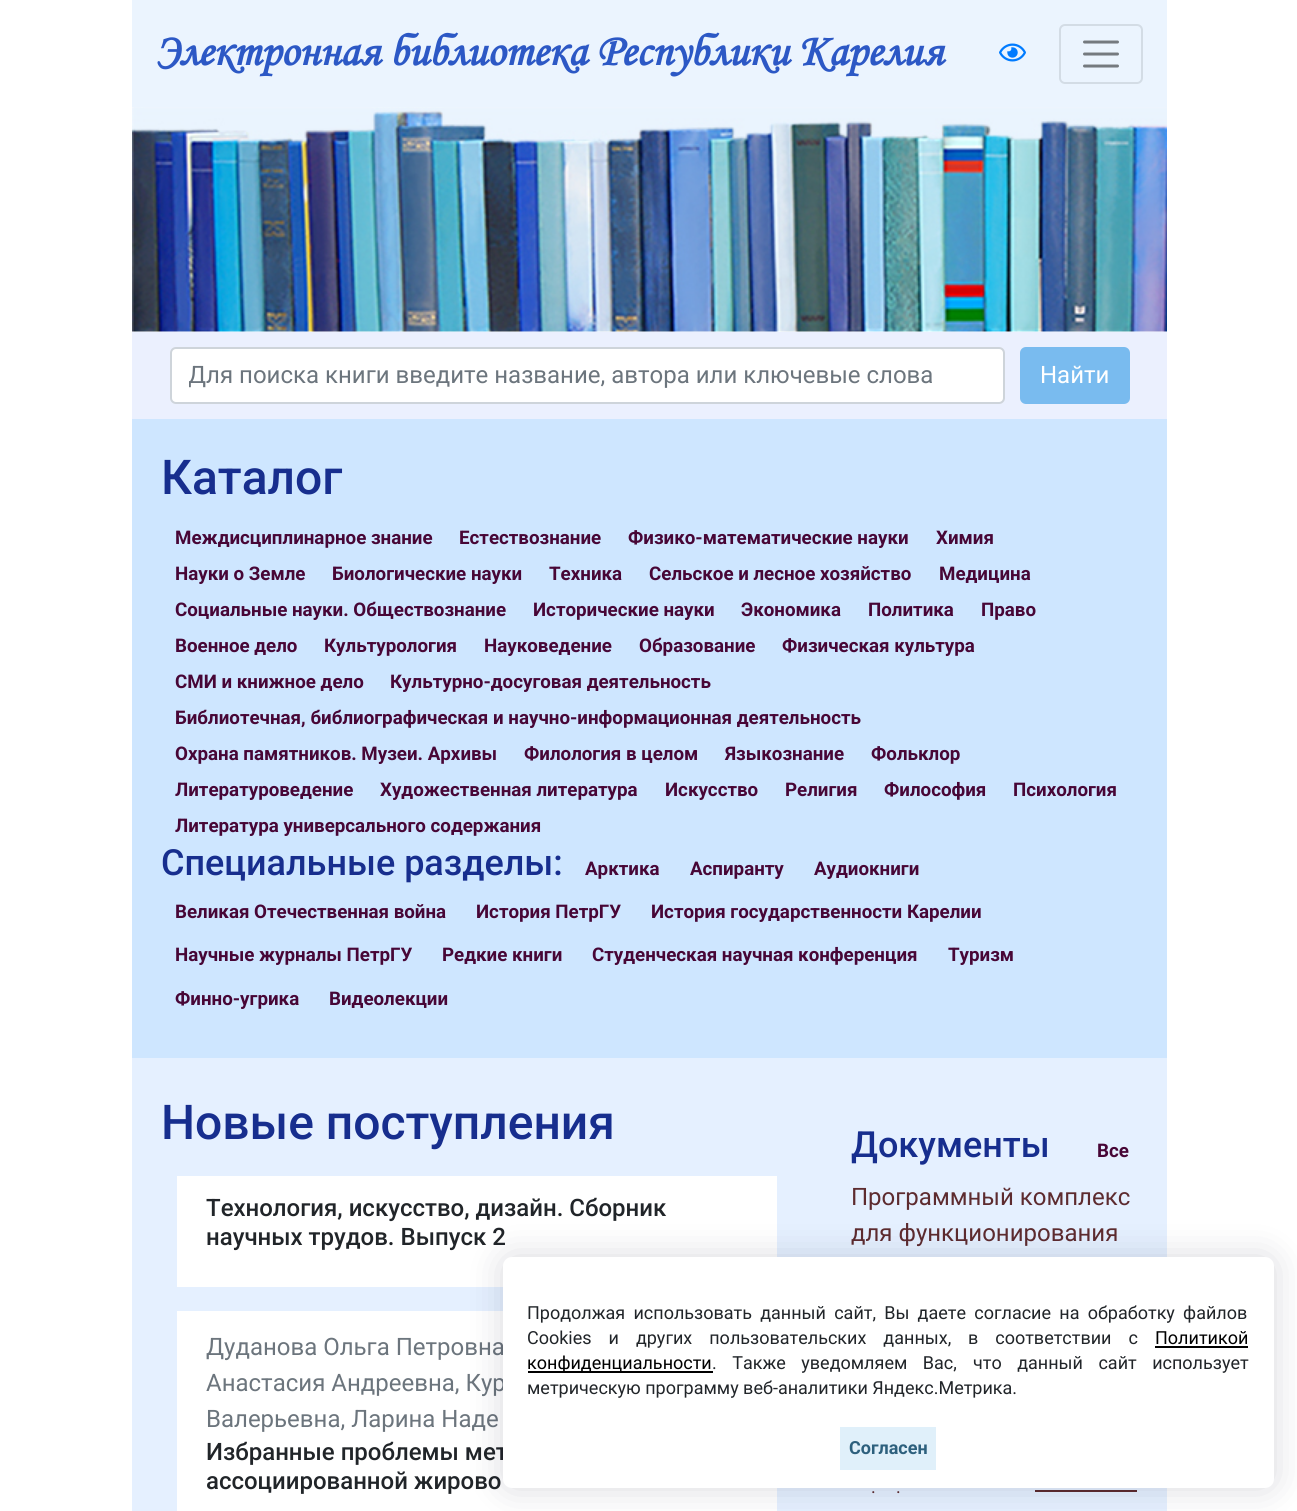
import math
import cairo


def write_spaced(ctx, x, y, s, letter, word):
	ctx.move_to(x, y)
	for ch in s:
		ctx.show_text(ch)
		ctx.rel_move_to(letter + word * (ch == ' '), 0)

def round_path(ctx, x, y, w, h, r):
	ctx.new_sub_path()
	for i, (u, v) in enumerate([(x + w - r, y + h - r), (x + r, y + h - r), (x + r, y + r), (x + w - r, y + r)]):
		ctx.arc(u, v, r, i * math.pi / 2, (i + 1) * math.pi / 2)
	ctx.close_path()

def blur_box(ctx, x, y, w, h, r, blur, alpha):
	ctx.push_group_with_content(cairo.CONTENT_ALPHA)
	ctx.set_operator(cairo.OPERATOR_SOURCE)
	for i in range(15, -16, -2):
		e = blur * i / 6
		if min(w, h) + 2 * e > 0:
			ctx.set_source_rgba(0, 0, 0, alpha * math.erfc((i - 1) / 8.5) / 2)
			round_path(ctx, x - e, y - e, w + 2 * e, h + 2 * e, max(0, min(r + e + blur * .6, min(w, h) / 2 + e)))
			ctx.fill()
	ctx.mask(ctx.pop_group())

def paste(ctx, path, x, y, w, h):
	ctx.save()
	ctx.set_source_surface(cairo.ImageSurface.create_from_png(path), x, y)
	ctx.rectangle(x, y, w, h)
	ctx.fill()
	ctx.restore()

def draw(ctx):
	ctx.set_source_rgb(1, 1, 1)
	ctx.paint()
	ctx.set_source_rgb(0.918, 0.957, 0.996)
	ctx.rectangle(132, 0, 1035, 107)
	ctx.fill()
	ctx.select_font_face('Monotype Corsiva', cairo.FONT_SLANT_ITALIC, cairo.FONT_WEIGHT_BOLD)
	ctx.set_font_size(45)
	ctx.set_source_rgb(0.173, 0.345, 0.773)
	ctx.move_to(155, 65)
	ctx.show_text('Электронная библиотека Республики Карелия')
	paste(ctx, 'media/1.png', 999, 43, 27, 19)
	round_path(ctx, 1060, 25, 82, 58, 5)
	ctx.set_source_rgb(0.827, 0.863, 0.898)
	ctx.stroke()
	ctx.new_path()
	ctx.move_to(1084.5, 42)
	ctx.line_to(1117.5, 42)
	ctx.move_to(1084.5, 54)
	ctx.line_to(1117.5, 54)
	ctx.move_to(1084.5, 66)
	ctx.line_to(1117.5, 66)
	ctx.set_source_rgb(0.459, 0.478, 0.498)
	ctx.set_line_width(3)
	ctx.set_line_cap(cairo.LINE_CAP_ROUND)
	ctx.stroke()
	paste(ctx, 'media/2.png', 132, 107, 1035, 225)
	ctx.set_source_rgb(0.918, 0.941, 0.996)
	ctx.rectangle(132, 332, 1035, 87)
	ctx.fill()
	ctx.set_source_rgb(1, 1, 1)
	round_path(ctx, 171, 348, 833, 55, 5)
	ctx.fill_preserve()
	ctx.set_source_rgb(0.808, 0.831, 0.855)
	ctx.set_line_width(2)
	ctx.set_line_cap(cairo.LINE_CAP_BUTT)
	ctx.stroke()
	ctx.save()
	ctx.rectangle(189, 362, 797, 28)
	ctx.clip()
	ctx.select_font_face('Roboto')
	ctx.set_font_size(24)
	ctx.set_source_rgb(0.424, 0.459, 0.49)
	ctx.move_to(188, 383)
	ctx.show_text('Для поиска книги введите название, автора или ключевые слова')
	ctx.restore()
	ctx.set_source_rgb(0.475, 0.733, 0.937)
	round_path(ctx, 1021, 348, 108, 55, 5)
	ctx.fill_preserve()
	ctx.stroke()
	ctx.select_font_face('Roboto')
	ctx.set_font_size(24)
	ctx.set_source_rgb(1, 1, 1)
	ctx.move_to(1040, 383)
	ctx.show_text('Найти')
	ctx.set_source_rgb(0.808, 0.902, 1)
	ctx.rectangle(132, 419, 1035, 639)
	ctx.fill()
	ctx.select_font_face('Roboto Medium')
	ctx.set_font_size(48)
	ctx.set_source_rgb(0.09, 0.18, 0.557)
	ctx.move_to(161, 494)
	ctx.show_text('Каталог')
	ctx.select_font_face('Roboto', cairo.FONT_SLANT_NORMAL, cairo.FONT_WEIGHT_BOLD)
	ctx.set_font_size(18.75)
	ctx.set_source_rgb(0.278, 0.027, 0.212)
	for x, y, s in [
		(175, 544, 'Междисциплинарное знание'),
		(459, 544, 'Естествознание'),
		(628, 544, 'Физико-математические науки'),
		(936, 544, 'Химия'),
		(175, 580, 'Науки о Земле'),
		(332, 580, 'Биологические науки'),
		(549, 580, 'Техника'),
		(649, 580, 'Сельское и лесное хозяйство'),
		(939, 580, 'Медицина'),
		(175, 616, 'Социальные науки. Обществознание'),
		(533, 616, 'Исторические науки'),
		(741, 616, 'Экономика'),
		(868, 616, 'Политика'),
		(981, 616, 'Право'),
		(175, 652, 'Военное дело'),
		(324, 652, 'Культурология'),
		(484, 652, 'Науковедение'),
		(639, 652, 'Образование'),
		(782, 652, 'Физическая культура'),
		(175, 688, 'СМИ и книжное дело'),
		(390, 688, 'Культурно-досуговая деятельность'),
		(175, 724, 'Библиотечная, библиографическая и научно-информационная деятельность'),
		(175, 760, 'Охрана памятников. Музеи. Архивы'),
		(524, 760, 'Филология в целом'),
		(725, 760, 'Языкознание'),
		(871, 760, 'Фольклор'),
		(175, 796, 'Литературоведение'),
		(380, 796, 'Художественная литература'),
		(665, 796, 'Искусство'),
		(785, 796, 'Религия'),
		(884, 796, 'Философия'),
		(1013, 796, 'Психология'),
		(175, 832, 'Литература универсального содержания'),
	]:
		ctx.move_to(x, y)
		ctx.show_text(s)
	ctx.select_font_face('Roboto Medium')
	ctx.set_font_size(36)
	ctx.set_source_rgb(0.09, 0.18, 0.557)
	ctx.move_to(161, 875)
	ctx.show_text('Специальные разделы:')
	ctx.select_font_face('Roboto', cairo.FONT_SLANT_NORMAL, cairo.FONT_WEIGHT_BOLD)
	ctx.set_font_size(18.75)
	ctx.set_source_rgb(0.278, 0.027, 0.212)
	for x, y, s in [
		(585, 875, 'Арктика'),
		(690, 875, 'Аспиранту'),
		(814, 875, 'Аудиокниги'),
		(175, 918, 'Великая Отечественная война'),
		(476, 918, 'История ПетрГУ'),
		(651, 918, 'История государственности Карелии'),
		(175, 961, 'Научные журналы ПетрГУ'),
		(442, 961, 'Редкие книги'),
		(592, 961, 'Студенческая научная конференция'),
		(948, 961, 'Туризм'),
		(175, 1005, 'Финно-угрика'),
		(329, 1005, 'Видеолекции'),
	]:
		ctx.move_to(x, y)
		ctx.show_text(s)
	ctx.set_source_rgb(0.898, 0.941, 1)
	ctx.rectangle(132, 1058, 1035, 453)
	ctx.fill()
	ctx.select_font_face('Roboto Medium')
	ctx.set_font_size(48)
	ctx.set_source_rgb(0.09, 0.18, 0.557)
	ctx.move_to(161, 1139)
	ctx.show_text('Новые поступления')
	ctx.set_source_rgb(1, 1, 1)
	ctx.rectangle(177, 1176, 600, 111)
	ctx.fill()
	ctx.set_font_size(24)
	ctx.set_source_rgb(0.129, 0.145, 0.161)
	ctx.move_to(206, 1216)
	ctx.show_text('Технология, искусство, дизайн. Сборник')
	ctx.move_to(206, 1245)
	ctx.show_text('научных трудов. Выпуск 2')
	ctx.set_source_rgb(1, 1, 1)
	ctx.rectangle(177, 1311, 600, 200)
	ctx.fill()
	ctx.select_font_face('Roboto')
	ctx.set_source_rgb(0.424, 0.459, 0.49)
	for x, y, s in [
		(206, 1355, 'Дуданова Ольга Петровна'),
		(206, 1391, 'Анастасия Андреевна, Кур'),
		(206, 1427, 'Валерьевна, Ларина Наде'),
	]:
		ctx.move_to(x, y)
		ctx.show_text(s)
	ctx.select_font_face('Roboto Medium')
	ctx.set_source_rgb(0.129, 0.145, 0.161)
	ctx.move_to(206, 1460)
	ctx.show_text('Избранные проблемы мет')
	ctx.move_to(206, 1489)
	ctx.show_text('ассоциированной жирово')
	ctx.set_font_size(36)
	ctx.set_source_rgb(0.09, 0.18, 0.557)
	ctx.move_to(851, 1157)
	ctx.show_text('Документы')
	ctx.select_font_face('Roboto', cairo.FONT_SLANT_NORMAL, cairo.FONT_WEIGHT_BOLD)
	ctx.set_font_size(18.75)
	ctx.set_source_rgb(0.278, 0.027, 0.212)
	ctx.move_to(1097, 1157)
	ctx.show_text('Все')
	ctx.select_font_face('Roboto')
	ctx.set_font_size(24)
	ctx.set_source_rgb(0.365, 0.169, 0.184)
	ctx.move_to(851, 1205)
	ctx.show_text('Программный комплекс')
	ctx.move_to(851, 1241)
	ctx.show_text('для функционирования')
	ctx.set_font_size(18)
	ctx.move_to(871, 1493)
	ctx.show_text('.')
	ctx.move_to(896, 1493)
	ctx.show_text('.')
	ctx.rectangle(1035, 1490, 102, 2)
	ctx.fill()
	ctx.set_source_rgb(0.02, 0, 0.122)
	blur_box(ctx, 503, 1257, 771, 231, 9, 18, 0.15)
	ctx.set_source_rgb(1, 1, 1)
	round_path(ctx, 503, 1257, 771, 231, 9)
	ctx.fill()
	ctx.set_source_rgb(0.129, 0.145, 0.161)
	write_spaced(ctx, 527, 1319, 'Продолжая использовать данный сайт, Вы даете согласие на обработку файлов', 0, 3.75)
	write_spaced(ctx, 527, 1344, 'Cookies и других пользовательских данных,', 0, 12.5)
	write_spaced(ctx, 968, 1344, 'в соответствии с', 0, 12.5)
	ctx.set_source_rgb(0, 0, 0)
	ctx.move_to(1155, 1344)
	ctx.show_text('Политикой')
	ctx.rectangle(1155, 1346, 93, 2)
	ctx.fill()
	ctx.rectangle(528, 1371, 185, 2)
	ctx.fill()
	ctx.move_to(527, 1369)
	ctx.show_text('конфиденциальности')
	ctx.set_source_rgb(0.129, 0.145, 0.161)
	write_spaced(ctx, 712, 1369, '. Также уведомляем Вас,', 0, 11)
	write_spaced(ctx, 973, 1369, 'что данный сайт использует', 0, 11)
	ctx.move_to(527, 1394)
	ctx.show_text('метрическую программу веб-аналитики Яндекс.Метрика.')
	ctx.set_source_rgb(0.878, 0.941, 0.98)
	ctx.rectangle(840, 1427, 96, 43)
	ctx.fill()
	ctx.select_font_face('Roboto', cairo.FONT_SLANT_NORMAL, cairo.FONT_WEIGHT_BOLD)
	ctx.set_source_rgb(0.176, 0.376, 0.49)
	ctx.move_to(849, 1454)
	ctx.show_text('Согласен')


surface = cairo.ImageSurface(cairo.FORMAT_RGB24, 1297, 1511)
ctx = cairo.Context(surface)
options = cairo.FontOptions()
options.set_hint_metrics(cairo.HINT_METRICS_OFF)
options.set_hint_style(cairo.HINT_STYLE_NONE)
ctx.set_font_options(options)
ctx.set_miter_limit(4)
draw(ctx)
surface.write_to_png('image.png')
